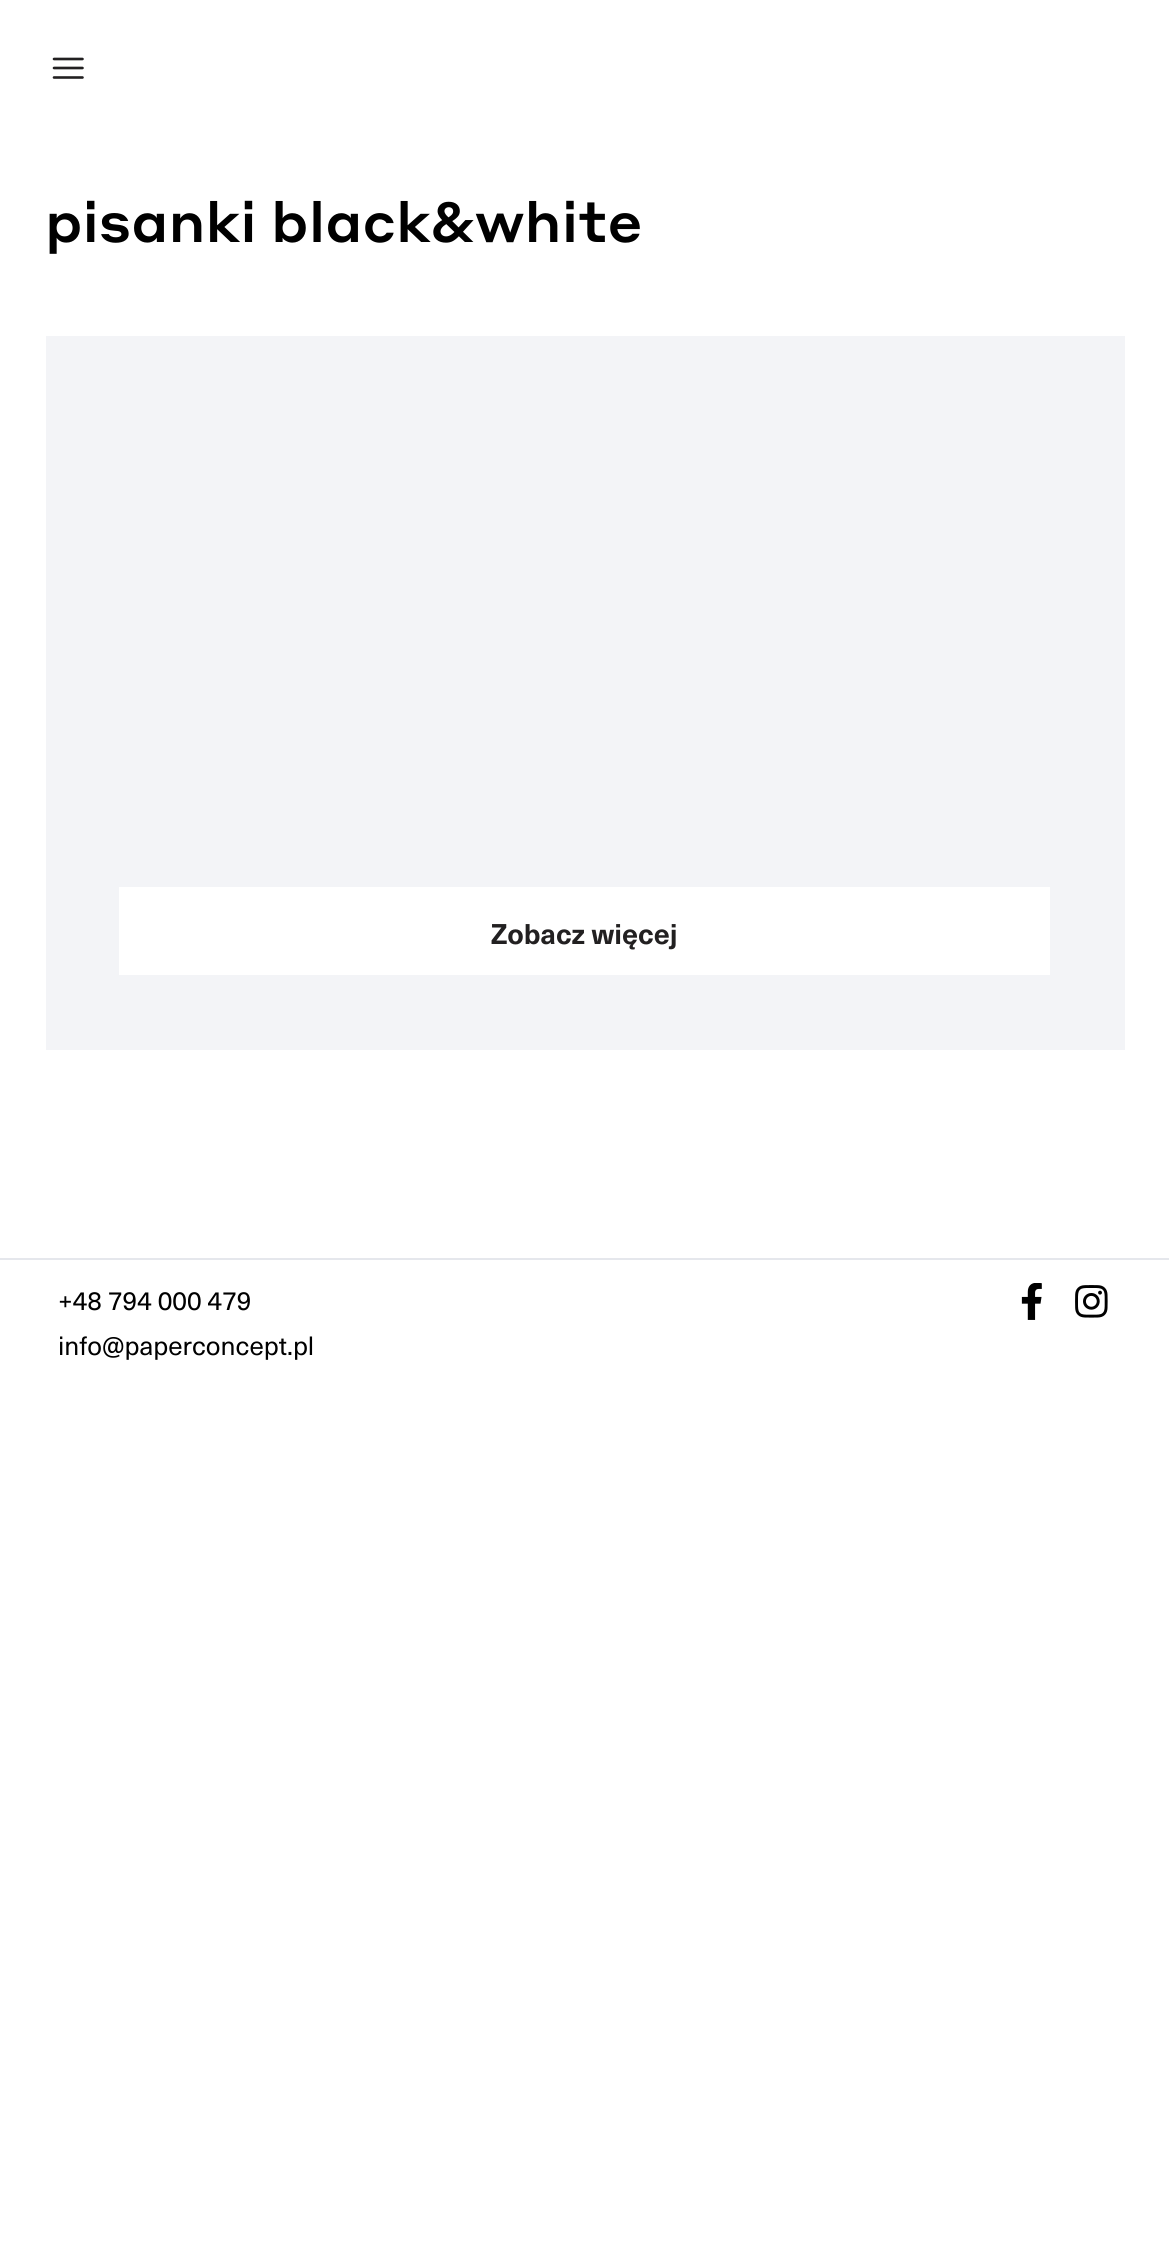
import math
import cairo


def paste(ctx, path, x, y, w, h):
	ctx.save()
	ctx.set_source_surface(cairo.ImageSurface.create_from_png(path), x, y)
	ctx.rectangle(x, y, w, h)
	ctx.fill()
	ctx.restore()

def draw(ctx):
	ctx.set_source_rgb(1, 1, 1)
	ctx.paint()
	ctx.new_path()
	ctx.move_to(54, 59)
	ctx.line_to(82.5, 59)
	ctx.move_to(54, 68)
	ctx.line_to(82.5, 68)
	ctx.move_to(54, 77.5)
	ctx.line_to(82.5, 77.5)
	ctx.set_source_rgb(0.133, 0.125, 0.129)
	ctx.set_line_width(2.6)
	ctx.set_line_cap(cairo.LINE_CAP_ROUND)
	ctx.set_line_join(cairo.LINE_JOIN_ROUND)
	ctx.stroke()
	ctx.select_font_face('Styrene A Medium')
	ctx.set_font_size(55.75)
	ctx.set_source_rgb(0, 0, 0)
	ctx.move_to(45, 242)
	ctx.show_text('pisanki black&white')
	ctx.set_source_rgb(0.953, 0.957, 0.965)
	ctx.rectangle(46, 336, 1079, 714)
	ctx.fill()
	ctx.set_source_rgb(1, 1, 1)
	ctx.rectangle(119, 887, 931, 88)
	ctx.fill()
	ctx.select_font_face('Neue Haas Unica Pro', cairo.FONT_SLANT_NORMAL, cairo.FONT_WEIGHT_BOLD)
	ctx.set_font_size(28)
	ctx.set_source_rgb(0.133, 0.125, 0.129)
	ctx.move_to(491, 944)
	ctx.show_text('Zobacz więcej')
	ctx.set_source_rgb(0.898, 0.906, 0.922)
	ctx.rectangle(0, 1258, 1169, 2)
	ctx.fill()
	ctx.select_font_face('Neue Haas Unica Pro')
	ctx.set_font_size(26)
	ctx.set_source_rgb(0, 0, 0)
	ctx.move_to(58, 1310)
	ctx.show_text('+48 794 000 479')
	ctx.move_to(58, 1355)
	ctx.show_text('info@paperconcept.pl')
	paste(ctx, 'media/1.png', 1021, 1283, 21, 37)
	paste(ctx, 'media/2.png', 1075, 1285, 33, 33)


surface = cairo.ImageSurface(cairo.FORMAT_RGB24, 1169, 2262)
ctx = cairo.Context(surface)
options = cairo.FontOptions()
options.set_hint_metrics(cairo.HINT_METRICS_OFF)
options.set_hint_style(cairo.HINT_STYLE_NONE)
ctx.set_font_options(options)
ctx.set_miter_limit(4)
draw(ctx)
surface.write_to_png('image.png')
